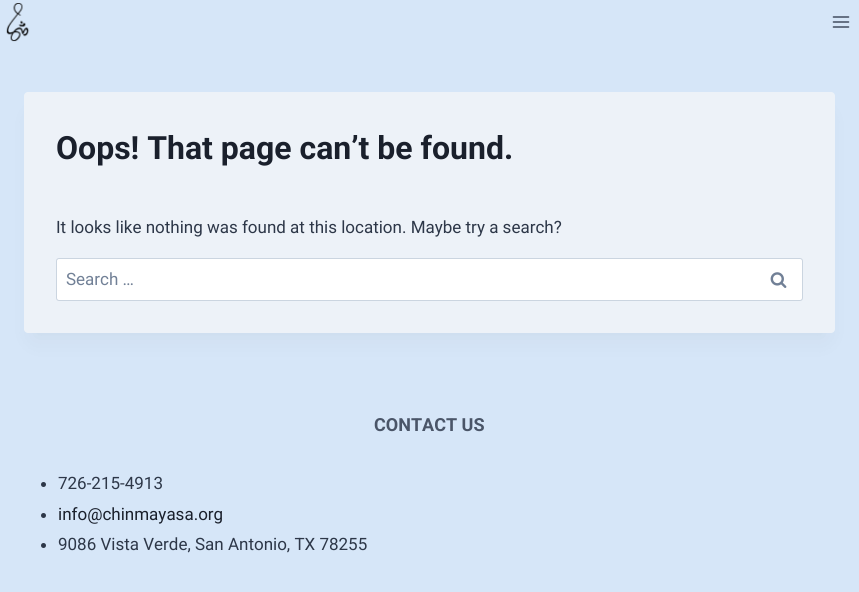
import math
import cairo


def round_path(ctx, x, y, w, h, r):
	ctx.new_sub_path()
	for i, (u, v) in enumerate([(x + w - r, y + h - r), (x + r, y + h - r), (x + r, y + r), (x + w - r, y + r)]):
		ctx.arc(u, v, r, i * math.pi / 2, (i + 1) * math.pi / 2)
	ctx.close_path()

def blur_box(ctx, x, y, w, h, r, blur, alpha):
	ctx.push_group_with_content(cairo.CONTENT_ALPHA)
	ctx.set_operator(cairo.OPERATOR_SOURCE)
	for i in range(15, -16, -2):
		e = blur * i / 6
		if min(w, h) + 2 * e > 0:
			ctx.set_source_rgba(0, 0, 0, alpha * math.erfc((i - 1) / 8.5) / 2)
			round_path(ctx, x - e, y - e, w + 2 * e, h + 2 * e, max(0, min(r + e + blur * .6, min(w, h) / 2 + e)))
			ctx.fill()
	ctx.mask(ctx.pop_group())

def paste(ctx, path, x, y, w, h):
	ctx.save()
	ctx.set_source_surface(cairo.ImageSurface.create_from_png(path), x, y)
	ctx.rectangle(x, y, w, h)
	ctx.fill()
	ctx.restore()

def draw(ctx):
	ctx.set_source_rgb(0.839, 0.902, 0.969)
	ctx.paint()
	paste(ctx, 'media/1.png', 6, 3, 24, 39)
	paste(ctx, 'media/2.png', 832, 16, 18, 12)
	ctx.set_source_rgb(0, 0, 0)
	blur_box(ctx, 34, 117, 791, 221, 0, 12.5, 0.05)
	ctx.set_source_rgb(0.929, 0.949, 0.969)
	round_path(ctx, 24, 92, 811, 241, 4)
	ctx.fill()
	ctx.select_font_face('Roboto', cairo.FONT_SLANT_NORMAL, cairo.FONT_WEIGHT_BOLD)
	ctx.set_font_size(32)
	ctx.set_source_rgb(0.102, 0.125, 0.173)
	ctx.move_to(56, 159)
	ctx.show_text('Oops! That page can’t be found.')
	ctx.select_font_face('Roboto')
	ctx.set_font_size(17)
	ctx.set_source_rgb(0.176, 0.216, 0.282)
	ctx.move_to(56, 233)
	ctx.show_text('It looks like nothing was found at this location. Maybe try a search?')
	ctx.set_source_rgb(1, 1, 1)
	round_path(ctx, 56.5, 258.5, 746, 42, 2.5)
	ctx.fill_preserve()
	ctx.set_source_rgb(0.796, 0.835, 0.878)
	ctx.set_line_width(1)
	ctx.stroke()
	ctx.set_source_rgb(0.443, 0.502, 0.588)
	ctx.move_to(66, 285)
	ctx.show_text('Search …')
	paste(ctx, 'media/3.png', 770, 272, 17, 16)
	ctx.select_font_face('Roboto', cairo.FONT_SLANT_NORMAL, cairo.FONT_WEIGHT_BOLD)
	ctx.set_font_size(18)
	ctx.set_source_rgb(0.29, 0.333, 0.408)
	ctx.move_to(374, 431)
	ctx.show_text('CONTACT US')
	ctx.set_source_rgb(0.176, 0.216, 0.282)
	ctx.new_path()
	ctx.arc(43.5, 484.5, 2.5, 0, 2 * math.pi)
	ctx.fill()
	ctx.select_font_face('Roboto')
	ctx.set_font_size(17)
	ctx.move_to(58, 489)
	ctx.show_text('726-215-4913')
	ctx.new_path()
	ctx.arc(43.5, 515.5, 2.5, 0, 2 * math.pi)
	ctx.fill()
	ctx.set_source_rgb(0.102, 0.125, 0.173)
	ctx.move_to(58, 520)
	ctx.show_text('info@chinmayasa.org')
	ctx.set_source_rgb(0.176, 0.216, 0.282)
	ctx.new_path()
	ctx.arc(43.5, 545.5, 2.5, 0, 2 * math.pi)
	ctx.fill()
	ctx.move_to(58, 550)
	ctx.show_text('9086 Vista Verde, San Antonio, TX 78255')


surface = cairo.ImageSurface(cairo.FORMAT_RGB24, 859, 592)
ctx = cairo.Context(surface)
options = cairo.FontOptions()
options.set_hint_metrics(cairo.HINT_METRICS_OFF)
options.set_hint_style(cairo.HINT_STYLE_NONE)
ctx.set_font_options(options)
ctx.set_miter_limit(4)
draw(ctx)
surface.write_to_png('image.png')
